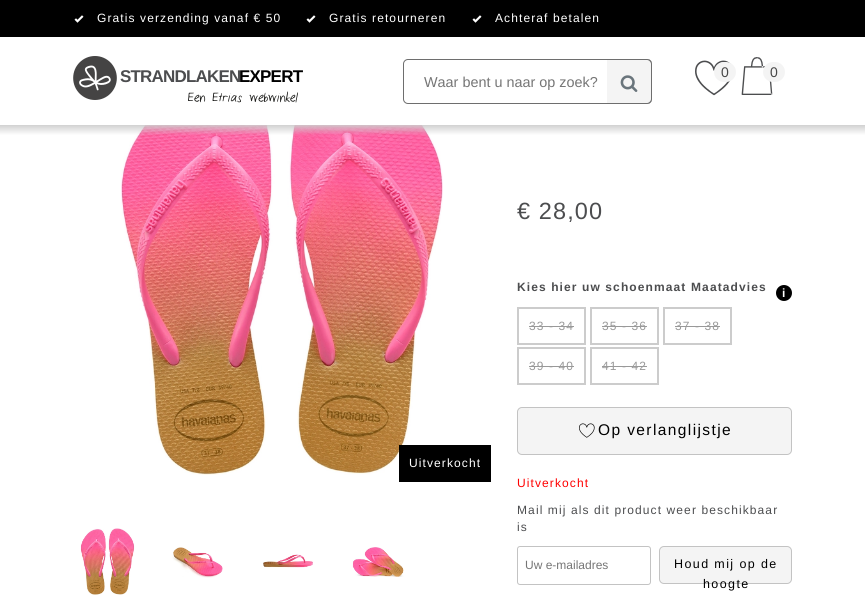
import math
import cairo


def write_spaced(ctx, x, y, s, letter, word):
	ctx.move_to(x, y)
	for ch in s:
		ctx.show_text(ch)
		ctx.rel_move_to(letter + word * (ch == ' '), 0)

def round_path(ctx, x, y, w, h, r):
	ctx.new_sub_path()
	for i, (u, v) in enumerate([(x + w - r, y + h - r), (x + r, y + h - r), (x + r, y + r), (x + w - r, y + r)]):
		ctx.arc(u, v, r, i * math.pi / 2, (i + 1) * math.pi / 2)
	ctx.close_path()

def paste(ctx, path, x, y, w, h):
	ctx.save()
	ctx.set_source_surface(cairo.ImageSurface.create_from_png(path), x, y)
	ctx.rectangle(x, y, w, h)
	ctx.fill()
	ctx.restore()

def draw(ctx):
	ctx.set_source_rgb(1, 1, 1)
	ctx.paint()
	ctx.set_source_rgb(0, 0, 0)
	ctx.rectangle(0, 0, 865, 37)
	ctx.fill()
	paste(ctx, 'media/1.png', 74, 15, 10, 8)
	ctx.select_font_face('Liberation Sans')
	ctx.set_font_size(12)
	ctx.set_source_rgb(1, 1, 1)
	write_spaced(ctx, 97, 22, 'Gratis verzending vanaf € 50', 1.1, 0)
	paste(ctx, 'media/1.png', 306, 15, 10, 8)
	write_spaced(ctx, 329, 22, 'Gratis retourneren', 1.1, 0)
	paste(ctx, 'media/1.png', 472, 15, 10, 8)
	write_spaced(ctx, 495, 22, 'Achteraf betalen', 1.1, 0)
	paste(ctx, 'media/2.png', 73, 56, 44, 44)
	ctx.select_font_face('Liberation Sans', cairo.FONT_SLANT_NORMAL, cairo.FONT_WEIGHT_BOLD)
	ctx.set_font_size(17)
	ctx.set_source_rgb(0.298, 0.302, 0.31)
	write_spaced(ctx, 120, 82, 'STRANDLAKEN', -0.8, 0)
	ctx.set_source_rgb(0, 0, 0)
	write_spaced(ctx, 239, 82, 'EXPERT', -0.8, 0)
	paste(ctx, 'media/3.png', 188, 91, 110, 12)
	round_path(ctx, 403.5, 59.5, 248, 44, 4.5)
	ctx.set_source_rgb(0.431, 0.431, 0.431)
	ctx.set_line_width(1)
	ctx.stroke()
	ctx.select_font_face('Liberation Sans')
	ctx.set_font_size(14.4)
	ctx.set_source_rgb(0.459, 0.459, 0.459)
	ctx.move_to(424, 87)
	ctx.show_text('Waar bent u naar op zoek?')
	ctx.set_source_rgb(0.957, 0.957, 0.957)
	ctx.new_path()
	ctx.move_to(607, 59)
	ctx.line_to(647, 59)
	ctx.curve_to(650, 59, 652, 61, 652, 64)
	ctx.line_to(652, 99)
	ctx.curve_to(652, 102, 650, 104, 647, 104)
	ctx.line_to(607, 104)
	ctx.close_path()
	ctx.fill()
	ctx.set_source_rgb(0.431, 0.431, 0.431)
	ctx.set_fill_rule(cairo.FILL_RULE_EVEN_ODD)
	ctx.new_path()
	ctx.move_to(607, 59)
	ctx.line_to(647, 59)
	ctx.curve_to(650, 59, 652, 61, 652, 64)
	ctx.line_to(652, 99)
	ctx.curve_to(652, 102, 650, 104, 647, 104)
	ctx.line_to(607, 104)
	ctx.close_path()
	ctx.move_to(607, 60)
	ctx.line_to(647, 60)
	ctx.curve_to(649, 60, 651, 62, 651, 64)
	ctx.line_to(651, 99)
	ctx.curve_to(651, 101, 649, 103, 647, 103)
	ctx.line_to(607, 103)
	ctx.close_path()
	ctx.fill()
	paste(ctx, 'media/4.png', 620, 75, 18, 17)
	paste(ctx, 'media/5.png', 695, 60, 36, 36)
	ctx.set_source_rgb(0.957, 0.957, 0.957)
	round_path(ctx, 714, 62, 22, 20, 10)
	ctx.fill()
	ctx.set_font_size(14)
	ctx.set_source_rgb(0.282, 0.282, 0.282)
	write_spaced(ctx, 721, 77, '0', 1.1, 0)
	paste(ctx, 'media/6.png', 741, 57, 32, 38)
	ctx.set_source_rgb(0.957, 0.957, 0.957)
	round_path(ctx, 763, 62, 22, 20, 10)
	ctx.fill()
	ctx.set_source_rgb(0.282, 0.282, 0.282)
	write_spaced(ctx, 770, 77, '0', 1.1, 0)
	paste(ctx, 'media/7.png', 121, 125, 322, 350)
	gradient = cairo.LinearGradient(433, 135, 433, 124)
	gradient.add_color_stop_rgba(0, 0.8, 0.8, 0.8, 0)
	gradient.add_color_stop_rgba(1, 0.8, 0.8, 0.8, 1)
	ctx.set_source(gradient)
	ctx.rectangle(0, 125, 865, 10)
	ctx.fill()
	paste(ctx, 'media/8.png', 80, 528, 55, 67)
	paste(ctx, 'media/9.png', 172, 547, 51, 31)
	paste(ctx, 'media/10.png', 263, 554, 50, 14)
	paste(ctx, 'media/11.png', 352, 547, 52, 30)
	ctx.set_source_rgb(0, 0, 0)
	ctx.rectangle(399, 445, 92, 37)
	ctx.fill()
	ctx.set_font_size(12)
	ctx.set_source_rgb(1, 1, 1)
	write_spaced(ctx, 409, 467, 'Uitverkocht', 1.1, 0)
	ctx.set_font_size(23.5)
	ctx.set_source_rgb(0.298, 0.302, 0.31)
	write_spaced(ctx, 517, 219, '€ 28,00', 1.1, 0)
	ctx.select_font_face('Liberation Sans', cairo.FONT_SLANT_NORMAL, cairo.FONT_WEIGHT_BOLD)
	ctx.set_font_size(12)
	write_spaced(ctx, 517, 291, 'Kies hier uw schoenmaat', 1.1, 0)
	write_spaced(ctx, 691, 291, 'Maatadvies', 1.1, 0)
	ctx.set_source_rgb(0, 0, 0)
	ctx.new_path()
	ctx.arc(784, 293, 8, 0, 2 * math.pi)
	ctx.fill()
	ctx.set_source_rgb(1, 1, 1)
	write_spaced(ctx, 782, 297, 'i', 1.1, 0)
	ctx.rectangle(518, 308, 67, 36)
	ctx.set_source_rgb(0.8, 0.8, 0.8)
	ctx.set_line_width(2)
	ctx.stroke()
	ctx.select_font_face('Liberation Sans')
	ctx.set_source_rgb(0.6, 0.6, 0.6)
	write_spaced(ctx, 529, 330, '33 - 34', 1.1, 0)
	ctx.rectangle(529, 326, 45, 1)
	ctx.fill()
	ctx.rectangle(591, 308, 67, 36)
	ctx.set_source_rgb(0.8, 0.8, 0.8)
	ctx.stroke()
	ctx.set_source_rgb(0.6, 0.6, 0.6)
	write_spaced(ctx, 602, 330, '35 - 36', 1.1, 0)
	ctx.rectangle(602, 326, 45, 1)
	ctx.fill()
	ctx.rectangle(664, 308, 67, 36)
	ctx.set_source_rgb(0.8, 0.8, 0.8)
	ctx.stroke()
	ctx.set_source_rgb(0.6, 0.6, 0.6)
	write_spaced(ctx, 675, 330, '37 - 38', 1.1, 0)
	ctx.rectangle(675, 326, 45, 1)
	ctx.fill()
	ctx.rectangle(518, 348, 67, 36)
	ctx.set_source_rgb(0.8, 0.8, 0.8)
	ctx.stroke()
	ctx.set_source_rgb(0.6, 0.6, 0.6)
	write_spaced(ctx, 529, 370, '39 - 40', 1.1, 0)
	ctx.rectangle(529, 366, 45, 1)
	ctx.fill()
	ctx.rectangle(591, 348, 67, 36)
	ctx.set_source_rgb(0.8, 0.8, 0.8)
	ctx.stroke()
	ctx.set_source_rgb(0.6, 0.6, 0.6)
	write_spaced(ctx, 602, 370, '41 - 42', 1.1, 0)
	ctx.rectangle(602, 366, 45, 1)
	ctx.fill()
	ctx.set_source_rgb(0.957, 0.957, 0.957)
	round_path(ctx, 517.5, 407.5, 274, 47, 4.5)
	ctx.fill_preserve()
	ctx.set_source_rgb(0.765, 0.765, 0.765)
	ctx.set_line_width(1)
	ctx.stroke()
	paste(ctx, 'media/12.png', 579, 423, 16, 15)
	ctx.set_font_size(15.5)
	ctx.set_source_rgb(0, 0, 0)
	write_spaced(ctx, 598, 435, 'Op verlanglijstje', 1.4, 0)
	ctx.set_font_size(12)
	ctx.set_source_rgb(1, 0, 0)
	write_spaced(ctx, 517, 487, 'Uitverkocht', 1.1, 0)
	ctx.set_source_rgb(0.298, 0.302, 0.31)
	write_spaced(ctx, 517, 514, 'Mail mij als dit product weer beschikbaar', 1.1, 0)
	write_spaced(ctx, 517, 531, 'is', 1.1, 0)
	round_path(ctx, 517.5, 546.5, 133, 38, 2.5)
	ctx.set_source_rgb(0.765, 0.765, 0.765)
	ctx.stroke()
	ctx.set_source_rgb(0.459, 0.459, 0.459)
	ctx.move_to(525, 569)
	ctx.show_text('Uw e-mailadres')
	ctx.set_source_rgb(0.957, 0.957, 0.957)
	round_path(ctx, 659.5, 546.5, 132, 37, 4.5)
	ctx.fill_preserve()
	ctx.set_source_rgb(0.765, 0.765, 0.765)
	ctx.stroke()
	ctx.set_font_size(12.5)
	ctx.set_source_rgb(0, 0, 0)
	write_spaced(ctx, 674, 568, 'Houd mij op de', 1.4, 0)
	write_spaced(ctx, 703, 588, 'hoogte', 1.4, 0)


surface = cairo.ImageSurface(cairo.FORMAT_RGB24, 865, 605)
ctx = cairo.Context(surface)
options = cairo.FontOptions()
options.set_hint_metrics(cairo.HINT_METRICS_OFF)
options.set_hint_style(cairo.HINT_STYLE_NONE)
ctx.set_font_options(options)
ctx.set_miter_limit(4)
draw(ctx)
surface.write_to_png('image.png')
